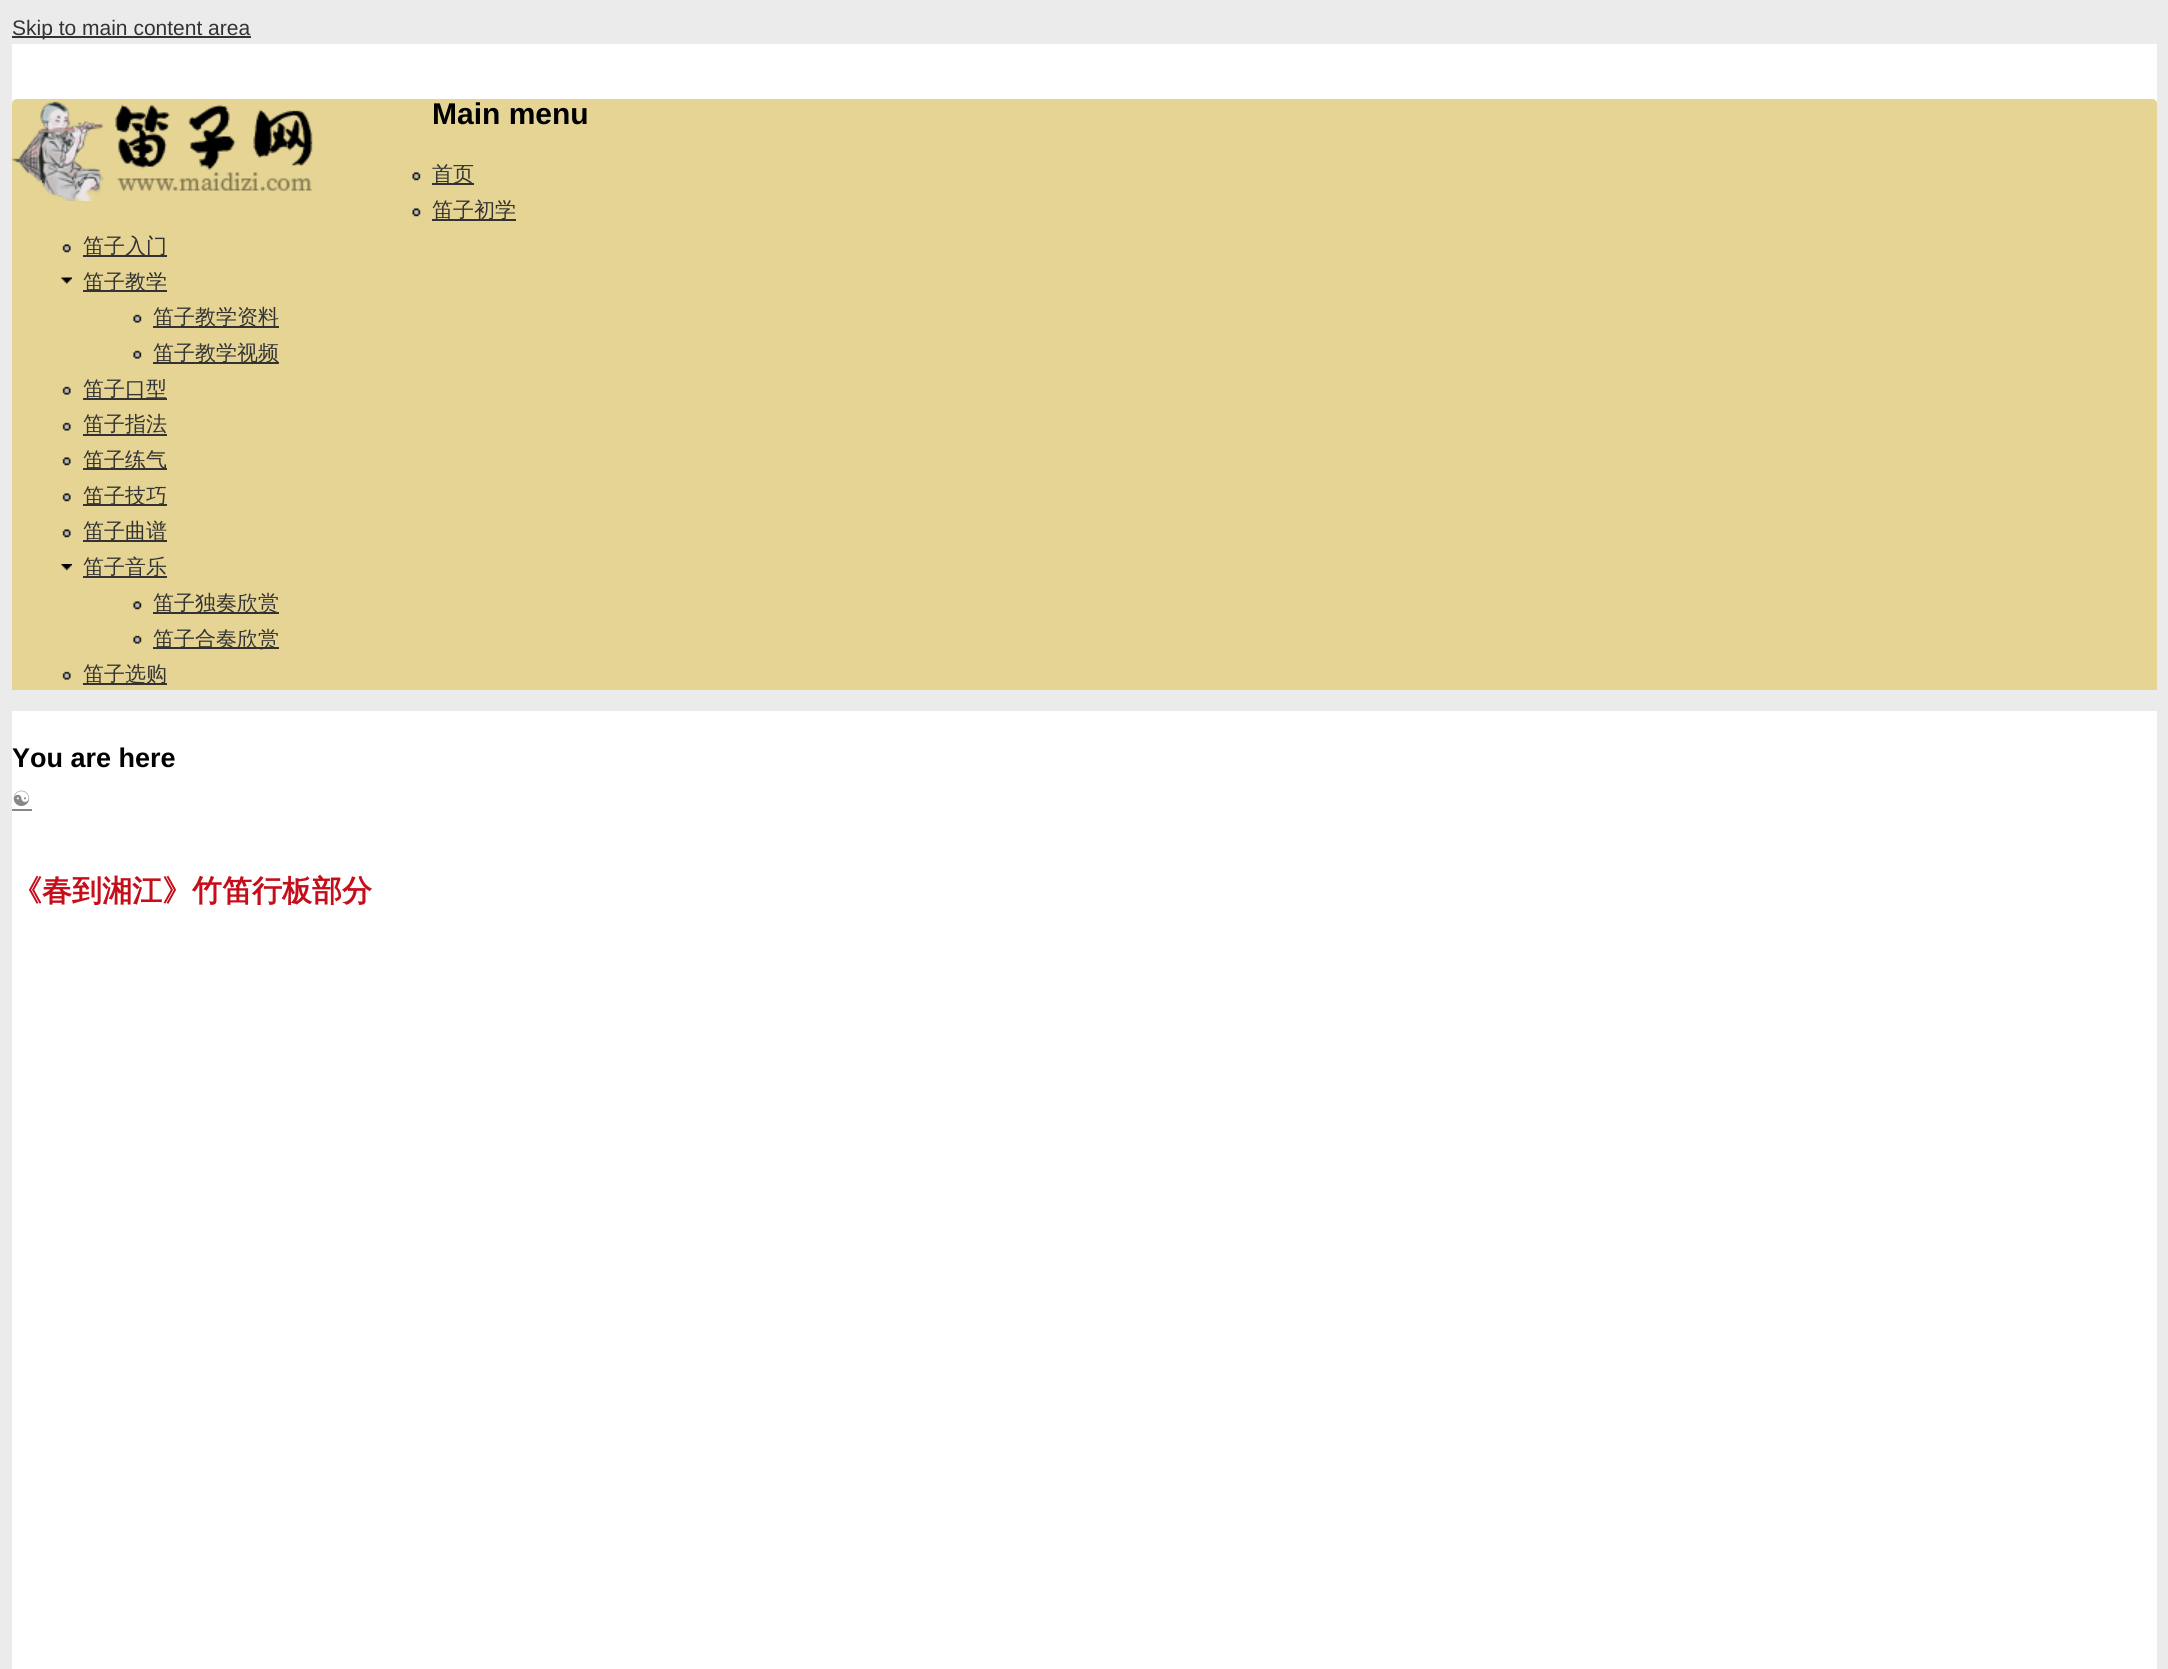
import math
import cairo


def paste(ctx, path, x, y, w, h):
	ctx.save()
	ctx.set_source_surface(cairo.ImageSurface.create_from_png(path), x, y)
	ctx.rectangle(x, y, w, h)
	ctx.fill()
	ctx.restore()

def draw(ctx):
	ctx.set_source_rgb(0.918, 0.918, 0.918)
	ctx.paint()
	ctx.set_source_rgb(0.2, 0.2, 0.2)
	ctx.rectangle(12, 36, 239, 2)
	ctx.fill()
	ctx.select_font_face('Liberation Sans')
	ctx.set_font_size(21)
	ctx.move_to(12, 35)
	ctx.show_text('Skip to main content area')
	ctx.set_source_rgb(1, 1, 1)
	ctx.rectangle(12, 44, 2145, 60)
	ctx.fill()
	ctx.set_source_rgb(0.898, 0.831, 0.576)
	ctx.new_path()
	ctx.move_to(17, 99)
	ctx.line_to(2152, 99)
	ctx.curve_to(2155, 99, 2157, 101, 2157, 104)
	ctx.line_to(2157, 690)
	ctx.line_to(12, 690)
	ctx.line_to(12, 104)
	ctx.curve_to(12, 101, 14, 99, 17, 99)
	ctx.close_path()
	ctx.fill()
	paste(ctx, 'media/1.png', 12, 101, 301, 100)
	ctx.select_font_face('Liberation Sans', cairo.FONT_SLANT_NORMAL, cairo.FONT_WEIGHT_BOLD)
	ctx.set_font_size(30)
	ctx.set_source_rgb(0, 0, 0)
	ctx.move_to(432, 124)
	ctx.show_text('Main menu')
	paste(ctx, 'media/2.png', 412, 172, 9, 9)
	ctx.set_source_rgb(0.2, 0.2, 0.2)
	ctx.rectangle(432, 183, 42, 2)
	ctx.fill()
	ctx.select_font_face('WenQuanYi Zen Hei Medium')
	ctx.set_font_size(21)
	ctx.move_to(432, 181)
	ctx.show_text('首页')
	paste(ctx, 'media/2.png', 412, 208, 9, 9)
	ctx.rectangle(432, 219, 84, 2)
	ctx.fill()
	ctx.move_to(432, 217)
	ctx.show_text('笛子初学')
	paste(ctx, 'media/3.png', 62, 244, 9, 9)
	ctx.rectangle(83, 255, 84, 2)
	ctx.fill()
	ctx.move_to(83, 253)
	ctx.show_text('笛子入门')
	paste(ctx, 'media/4.png', 61, 277, 11, 7)
	ctx.rectangle(83, 290, 84, 2)
	ctx.fill()
	ctx.move_to(83, 289)
	ctx.show_text('笛子教学')
	paste(ctx, 'media/5.png', 133, 314, 9, 9)
	ctx.rectangle(153, 326, 126, 2)
	ctx.fill()
	ctx.move_to(153, 324)
	ctx.show_text('笛子教学资料')
	paste(ctx, 'media/5.png', 133, 350, 9, 9)
	ctx.rectangle(153, 362, 126, 2)
	ctx.fill()
	ctx.move_to(153, 360)
	ctx.show_text('笛子教学视频')
	paste(ctx, 'media/6.png', 62, 386, 9, 9)
	ctx.rectangle(83, 398, 84, 2)
	ctx.fill()
	ctx.move_to(83, 396)
	ctx.show_text('笛子口型')
	paste(ctx, 'media/6.png', 62, 422, 9, 9)
	ctx.move_to(83, 431)
	ctx.show_text('笛子指法')
	ctx.rectangle(83, 434, 84, 2)
	ctx.fill()
	paste(ctx, 'media/3.png', 62, 457, 9, 9)
	ctx.rectangle(83, 468, 84, 2)
	ctx.fill()
	ctx.move_to(83, 467)
	ctx.show_text('笛子练气')
	paste(ctx, 'media/3.png', 62, 493, 9, 9)
	ctx.rectangle(83, 504, 84, 2)
	ctx.fill()
	ctx.move_to(83, 503)
	ctx.show_text('笛子技巧')
	paste(ctx, 'media/3.png', 62, 529, 9, 9)
	ctx.rectangle(83, 540, 84, 2)
	ctx.fill()
	ctx.move_to(83, 538)
	ctx.show_text('笛子曲谱')
	paste(ctx, 'media/7.png', 61, 564, 11, 7)
	ctx.rectangle(83, 576, 84, 2)
	ctx.fill()
	ctx.move_to(83, 574)
	ctx.show_text('笛子音乐')
	paste(ctx, 'media/8.png', 133, 601, 9, 9)
	ctx.rectangle(153, 612, 126, 2)
	ctx.fill()
	ctx.move_to(153, 610)
	ctx.show_text('笛子独奏欣赏')
	paste(ctx, 'media/5.png', 133, 635, 9, 9)
	ctx.rectangle(153, 647, 126, 2)
	ctx.fill()
	ctx.move_to(153, 646)
	ctx.show_text('笛子合奏欣赏')
	paste(ctx, 'media/6.png', 62, 671, 9, 9)
	ctx.rectangle(83, 683, 84, 2)
	ctx.fill()
	ctx.move_to(83, 681)
	ctx.show_text('笛子选购')
	ctx.set_source_rgb(1, 1, 1)
	ctx.rectangle(12, 711, 2145, 958)
	ctx.fill()
	ctx.select_font_face('Liberation Sans', cairo.FONT_SLANT_NORMAL, cairo.FONT_WEIGHT_BOLD)
	ctx.set_font_size(27)
	ctx.set_source_rgb(0, 0, 0)
	ctx.move_to(12, 767)
	ctx.show_text('You are here')
	ctx.select_font_face('DejaVu Sans')
	ctx.set_font_size(21)
	ctx.set_source_rgb(0.537, 0.529, 0.529)
	ctx.move_to(12, 806)
	ctx.show_text('☯')
	ctx.rectangle(12, 809, 20, 2)
	ctx.fill()
	ctx.select_font_face('WenQuanYi Zen Hei', cairo.FONT_SLANT_NORMAL, cairo.FONT_WEIGHT_BOLD)
	ctx.set_font_size(30)
	ctx.set_source_rgb(0.773, 0.055, 0.102)
	ctx.move_to(12, 901)
	ctx.show_text('《春到湘江》竹笛行板部分')


surface = cairo.ImageSurface(cairo.FORMAT_RGB24, 2168, 1669)
ctx = cairo.Context(surface)
options = cairo.FontOptions()
options.set_hint_metrics(cairo.HINT_METRICS_OFF)
options.set_hint_style(cairo.HINT_STYLE_NONE)
ctx.set_font_options(options)
ctx.set_miter_limit(4)
draw(ctx)
surface.write_to_png('image.png')
